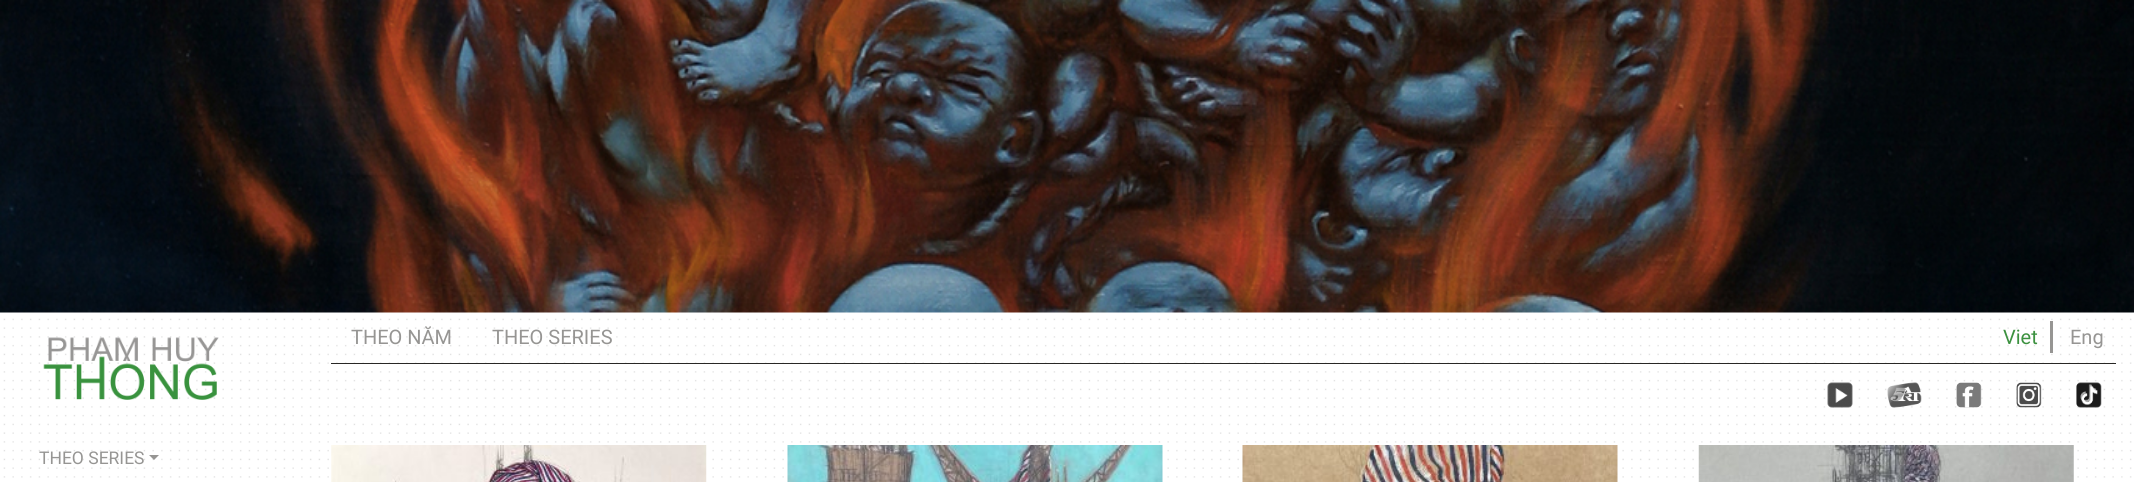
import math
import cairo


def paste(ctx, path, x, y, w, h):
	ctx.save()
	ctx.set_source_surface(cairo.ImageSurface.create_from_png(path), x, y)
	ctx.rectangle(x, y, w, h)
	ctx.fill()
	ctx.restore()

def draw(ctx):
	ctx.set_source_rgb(1, 1, 1)
	ctx.paint()
	paste(ctx, 'media/1.png', 3, 312, 2129, 166)
	paste(ctx, 'media/2.png', 0, 0, 2134, 313)
	paste(ctx, 'media/3.png', 43, 337, 176, 63)
	ctx.set_source_rgb(0.157, 0.153, 0.145)
	ctx.rectangle(331, 363, 1785, 1)
	ctx.fill()
	ctx.select_font_face('Roboto')
	ctx.set_font_size(20)
	ctx.set_source_rgb(0.588, 0.584, 0.576)
	ctx.move_to(351, 344)
	ctx.show_text('THEO NĂM')
	ctx.move_to(492, 344)
	ctx.show_text('THEO SERIES')
	ctx.set_source_rgb(0.235, 0.569, 0.251)
	ctx.move_to(2003, 344)
	ctx.show_text('Viet')
	ctx.set_source_rgb(0.588, 0.584, 0.576)
	ctx.rectangle(2050, 321, 3, 32)
	ctx.fill()
	ctx.move_to(2070, 344)
	ctx.show_text('Eng')
	paste(ctx, 'media/4.png', 1827, 382, 26, 26)
	paste(ctx, 'media/5.png', 1887, 382, 35, 26)
	paste(ctx, 'media/6.png', 1956, 382, 26, 26)
	paste(ctx, 'media/7.png', 2016, 382, 26, 26)
	paste(ctx, 'media/8.png', 2076, 382, 26, 26)
	ctx.set_font_size(17.5)
	ctx.move_to(39, 464)
	ctx.show_text('THEO SERIES')
	ctx.new_path()
	ctx.move_to(149, 455)
	ctx.line_to(159, 455)
	ctx.line_to(154, 460)
	ctx.close_path()
	ctx.fill()
	paste(ctx, 'media/9.png', 331, 445, 376, 37)
	paste(ctx, 'media/10.png', 787, 445, 376, 37)
	paste(ctx, 'media/11.png', 1242, 445, 376, 37)
	paste(ctx, 'media/12.png', 1698, 445, 376, 37)


surface = cairo.ImageSurface(cairo.FORMAT_RGB24, 2134, 482)
ctx = cairo.Context(surface)
options = cairo.FontOptions()
options.set_hint_metrics(cairo.HINT_METRICS_OFF)
options.set_hint_style(cairo.HINT_STYLE_NONE)
ctx.set_font_options(options)
ctx.set_miter_limit(4)
draw(ctx)
surface.write_to_png('image.png')
